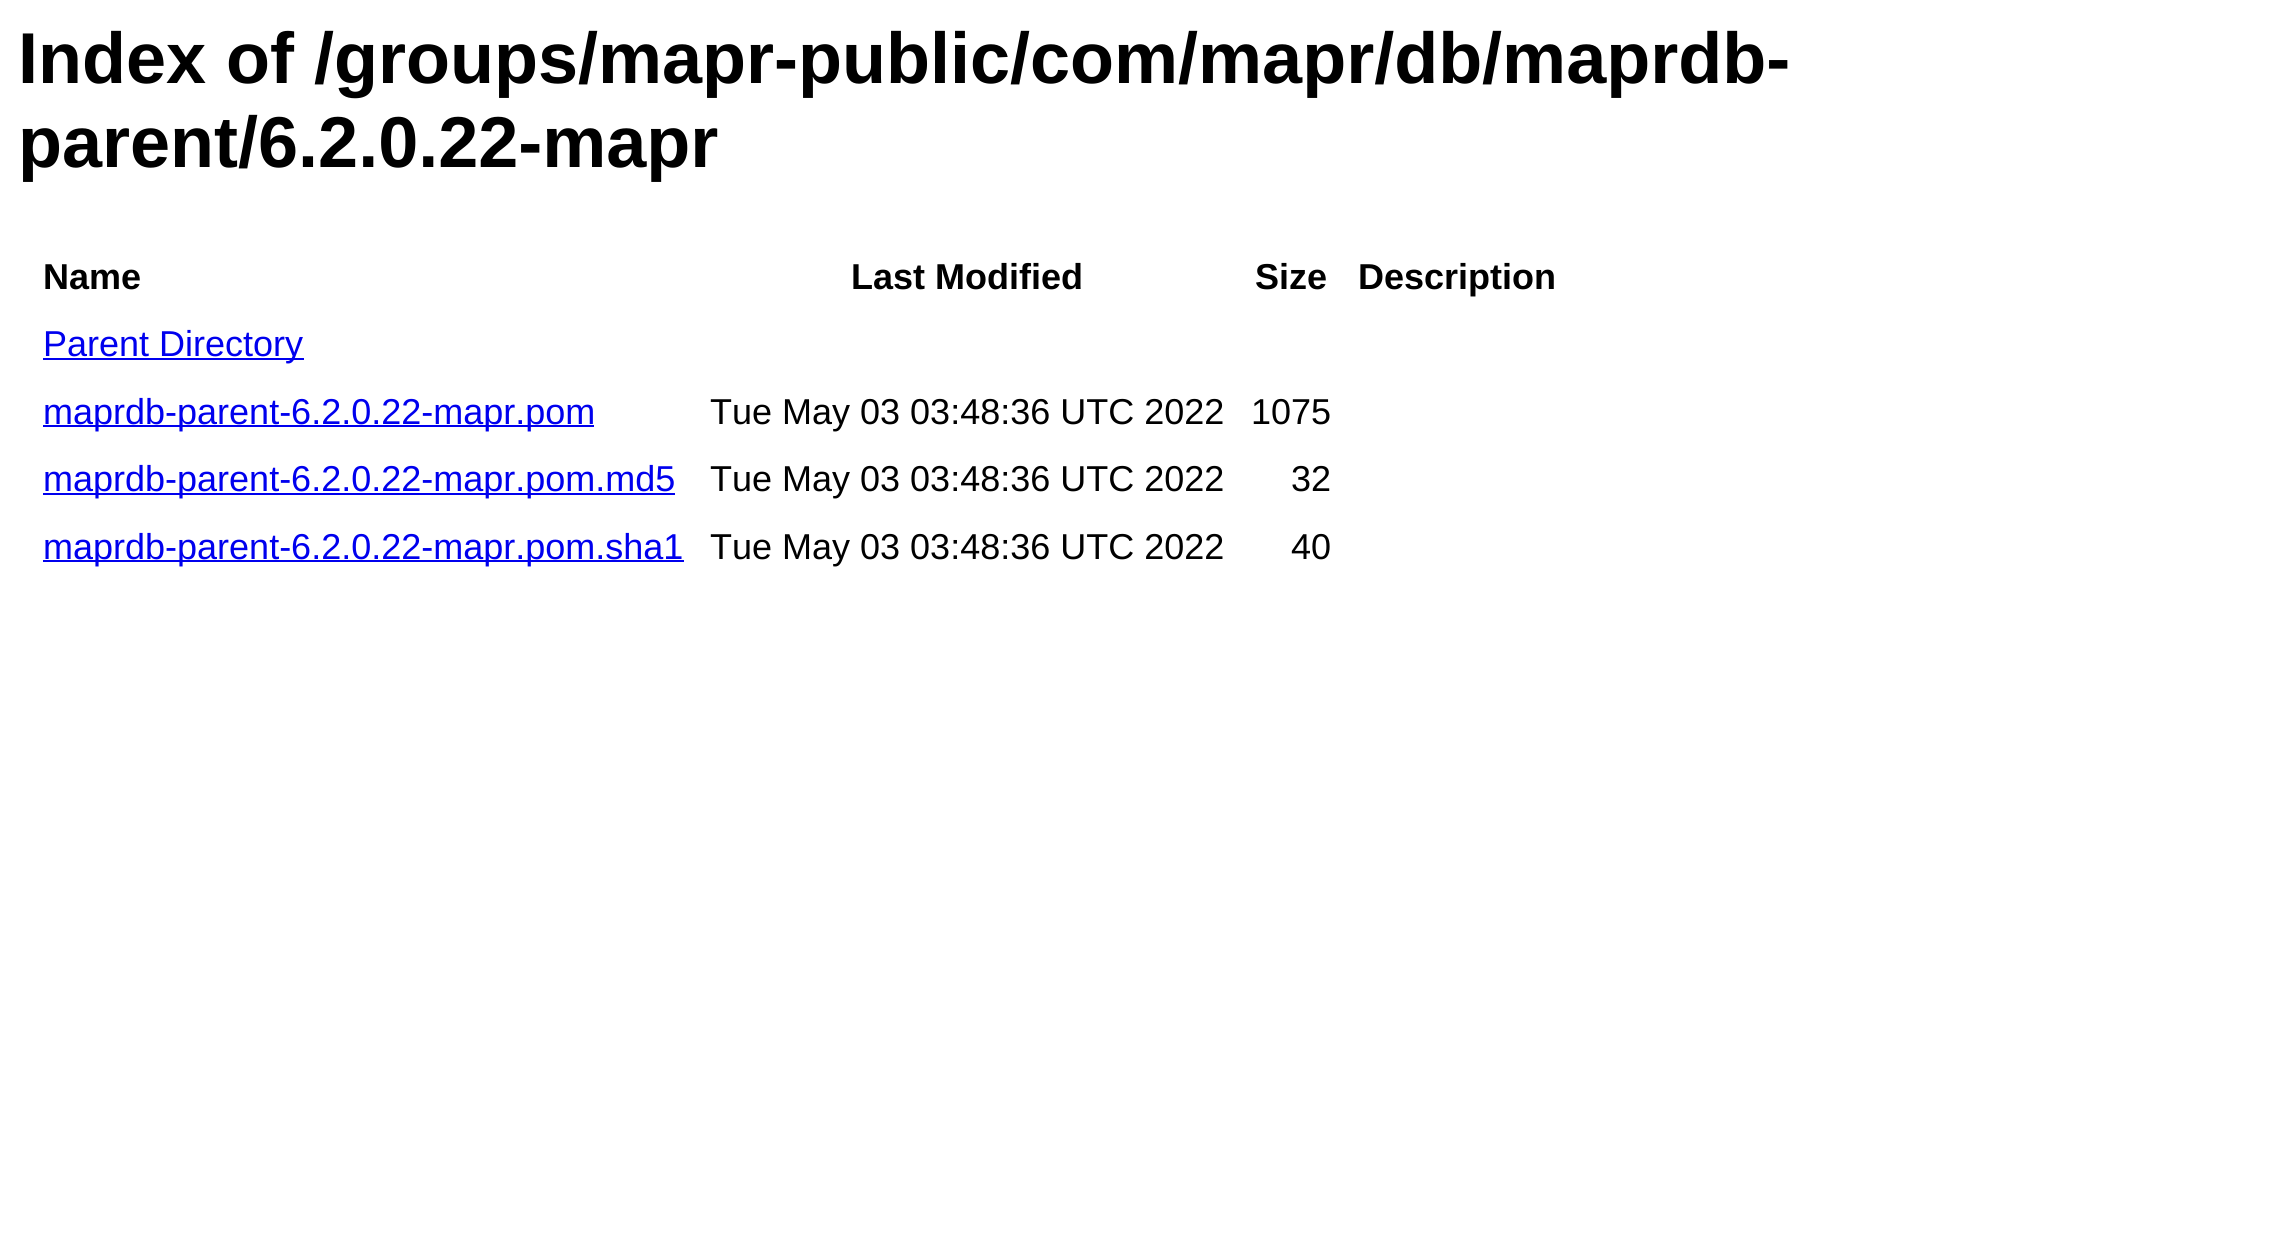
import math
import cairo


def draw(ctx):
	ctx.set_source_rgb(1, 1, 1)
	ctx.paint()
	ctx.select_font_face('Liberation Sans', cairo.FONT_SLANT_NORMAL, cairo.FONT_WEIGHT_BOLD)
	ctx.set_font_size(72)
	ctx.set_source_rgb(0, 0, 0)
	ctx.move_to(18, 83)
	ctx.show_text('Index of /groups/mapr-public/com/mapr/db/maprdb-')
	ctx.move_to(18, 167)
	ctx.show_text('parent/6.2.0.22-mapr')
	ctx.set_font_size(36)
	for x, y, s in [
		(43, 289, 'Name'),
		(851, 289, 'Last Modified'),
		(1255, 289, 'Size'),
		(1358, 289, 'Description'),
	]:
		ctx.move_to(x, y)
		ctx.show_text(s)
	ctx.set_source_rgb(0, 0, 0.933)
	ctx.rectangle(43, 358, 261, 2)
	ctx.fill()
	ctx.select_font_face('Liberation Sans')
	ctx.move_to(43, 356)
	ctx.show_text('Parent Directory')
	ctx.rectangle(43, 425, 551, 2)
	ctx.fill()
	ctx.move_to(43, 424)
	ctx.show_text('maprdb-parent-6.2.0.22-mapr.pom')
	ctx.set_source_rgb(0, 0, 0)
	ctx.move_to(710, 424)
	ctx.show_text('Tue May 03 03:48:36 UTC 2022')
	ctx.move_to(1251, 424)
	ctx.show_text('1075')
	ctx.set_source_rgb(0, 0, 0.933)
	ctx.rectangle(43, 493, 632, 2)
	ctx.fill()
	ctx.move_to(43, 491)
	ctx.show_text('maprdb-parent-6.2.0.22-mapr.pom.md5')
	ctx.set_source_rgb(0, 0, 0)
	ctx.move_to(710, 491)
	ctx.show_text('Tue May 03 03:48:36 UTC 2022')
	ctx.move_to(1291, 491)
	ctx.show_text('32')
	ctx.set_source_rgb(0, 0, 0.933)
	ctx.rectangle(43, 560, 641, 2)
	ctx.fill()
	ctx.move_to(43, 559)
	ctx.show_text('maprdb-parent-6.2.0.22-mapr.pom.sha1')
	ctx.set_source_rgb(0, 0, 0)
	ctx.move_to(710, 559)
	ctx.show_text('Tue May 03 03:48:36 UTC 2022')
	ctx.move_to(1291, 559)
	ctx.show_text('40')


surface = cairo.ImageSurface(cairo.FORMAT_RGB24, 2287, 1260)
ctx = cairo.Context(surface)
options = cairo.FontOptions()
options.set_hint_metrics(cairo.HINT_METRICS_OFF)
options.set_hint_style(cairo.HINT_STYLE_NONE)
ctx.set_font_options(options)
ctx.set_miter_limit(4)
draw(ctx)
surface.write_to_png('image.png')
